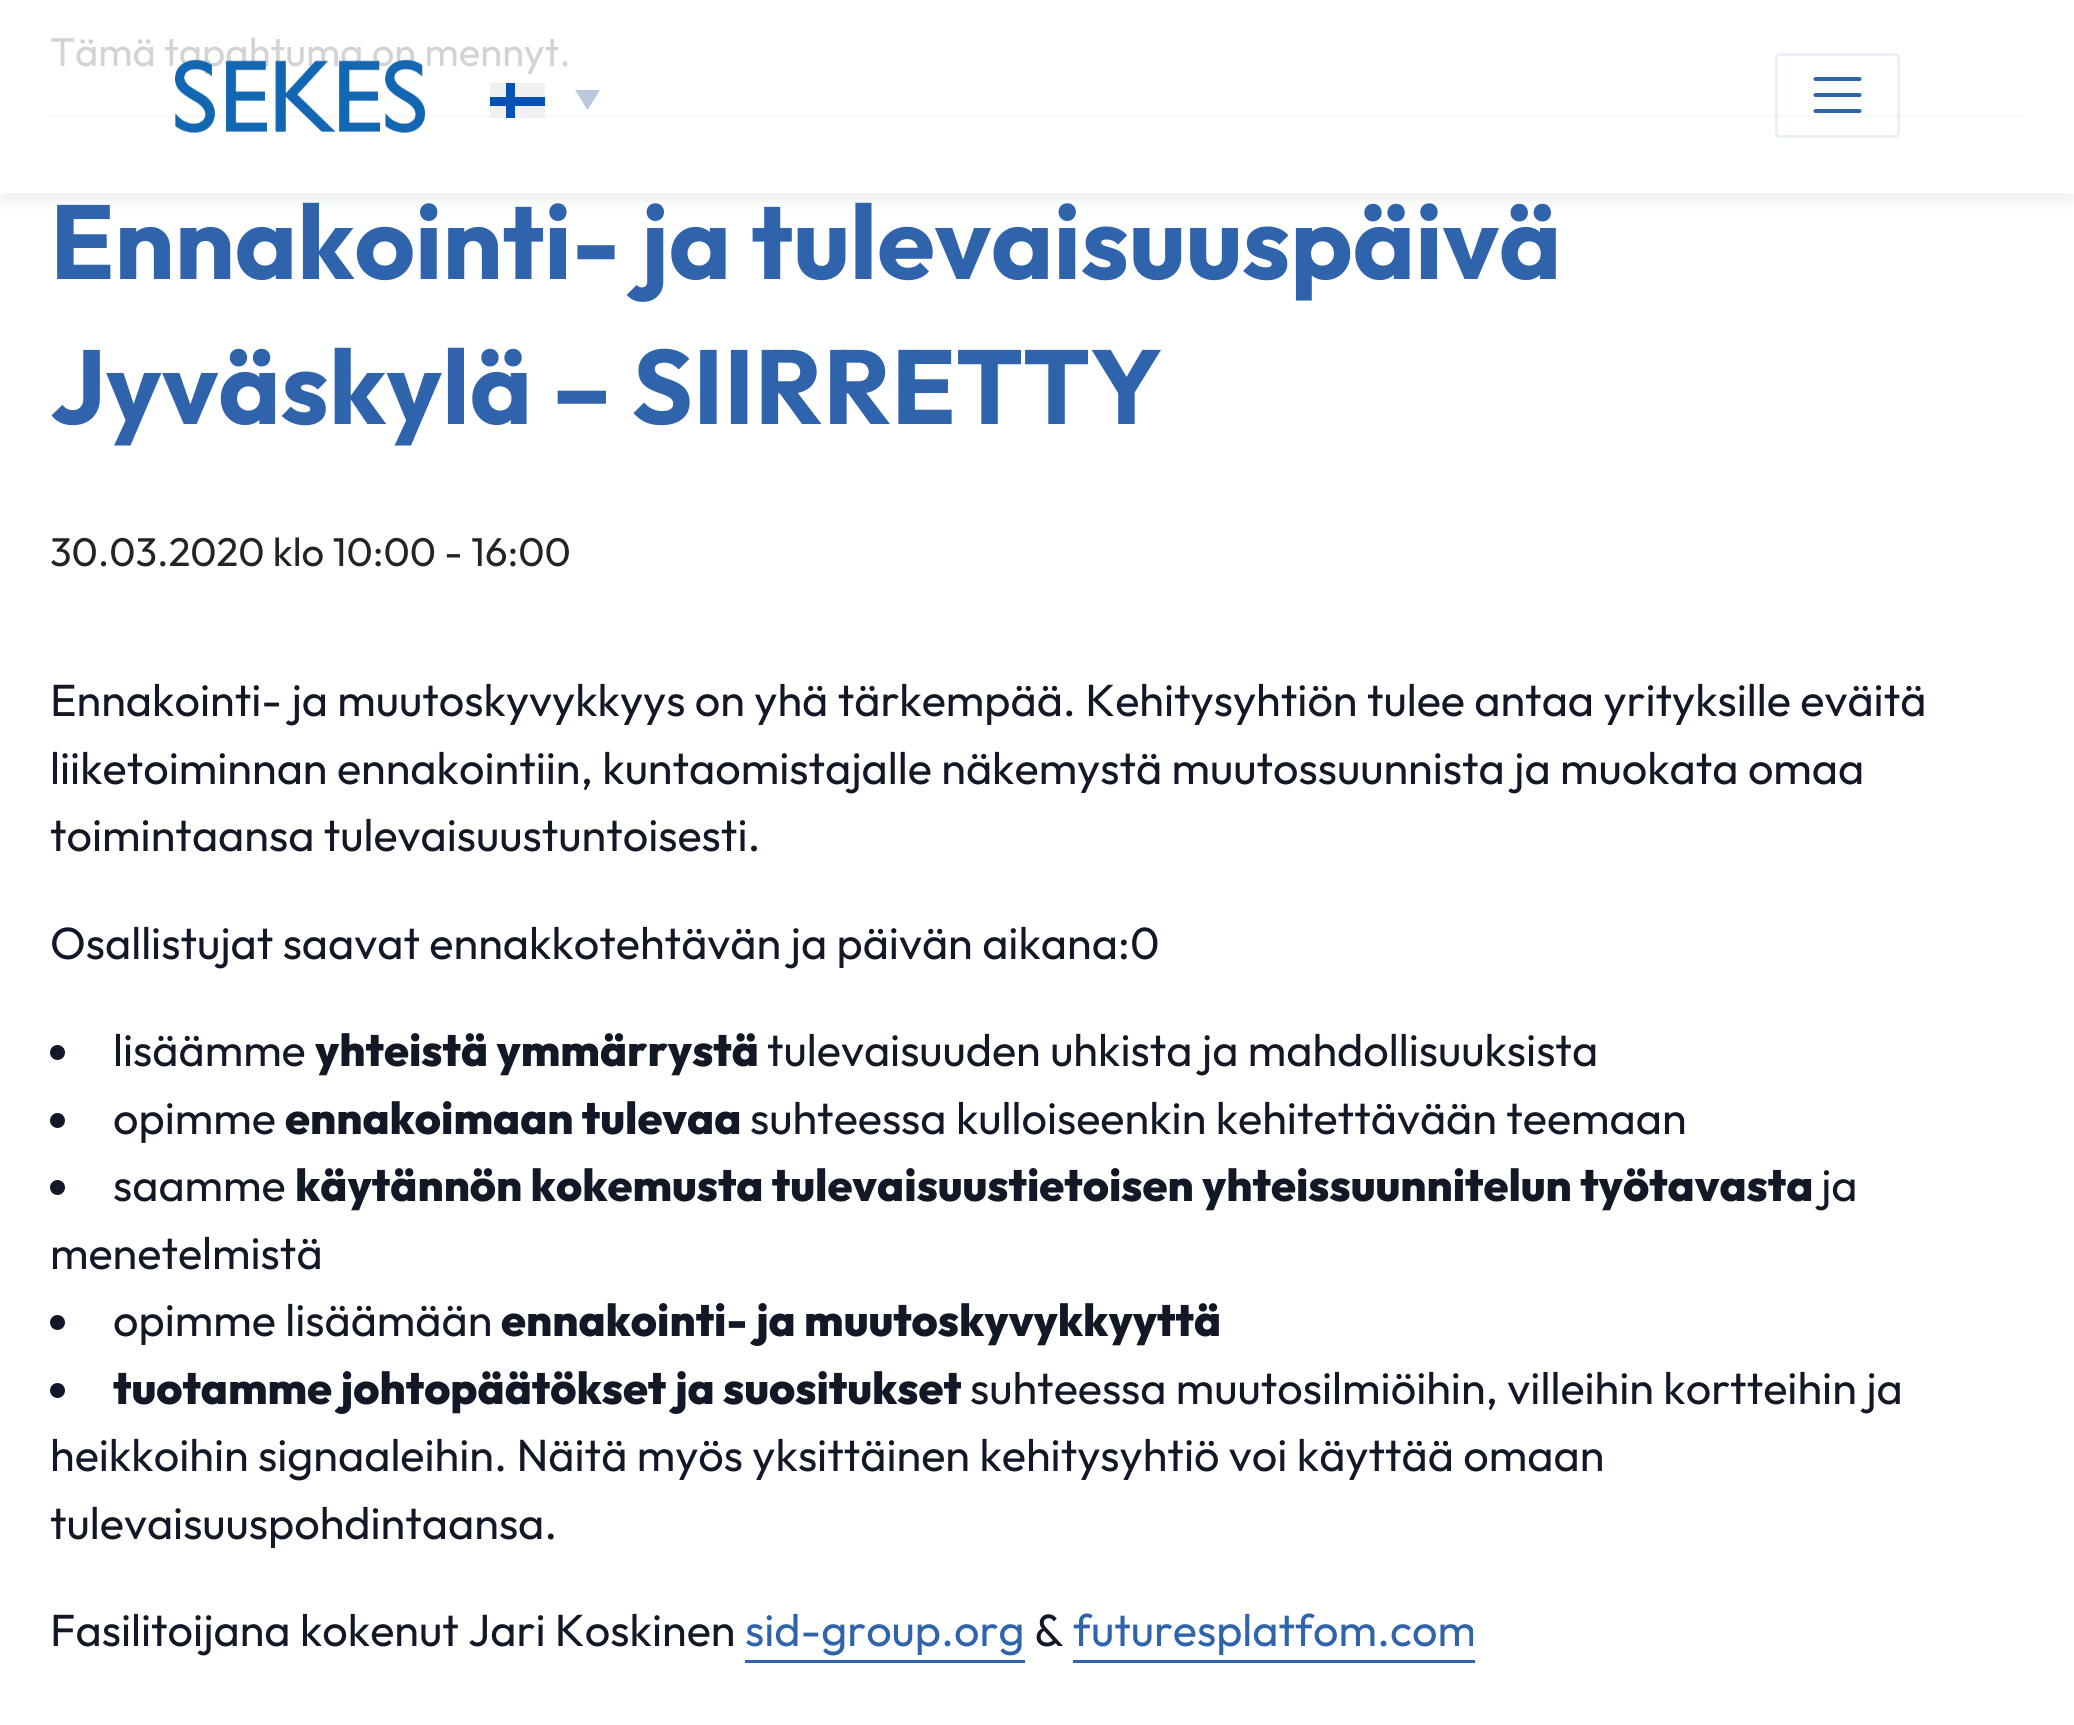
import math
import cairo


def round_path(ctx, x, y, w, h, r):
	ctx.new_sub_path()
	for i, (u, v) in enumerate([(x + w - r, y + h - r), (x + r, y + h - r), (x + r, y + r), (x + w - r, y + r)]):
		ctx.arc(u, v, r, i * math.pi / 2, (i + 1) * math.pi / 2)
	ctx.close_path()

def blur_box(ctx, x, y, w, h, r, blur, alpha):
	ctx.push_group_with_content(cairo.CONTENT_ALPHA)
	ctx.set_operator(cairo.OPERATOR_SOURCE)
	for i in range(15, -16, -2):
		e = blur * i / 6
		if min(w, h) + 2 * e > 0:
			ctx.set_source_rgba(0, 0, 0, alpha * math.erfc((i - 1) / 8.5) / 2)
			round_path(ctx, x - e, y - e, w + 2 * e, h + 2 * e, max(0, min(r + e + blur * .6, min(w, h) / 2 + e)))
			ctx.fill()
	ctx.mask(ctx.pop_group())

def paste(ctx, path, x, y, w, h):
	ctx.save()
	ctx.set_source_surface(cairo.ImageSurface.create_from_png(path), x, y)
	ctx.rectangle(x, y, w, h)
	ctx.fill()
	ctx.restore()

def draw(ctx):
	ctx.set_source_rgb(1, 1, 1)
	ctx.paint()
	ctx.set_source_rgb(0.98, 0.98, 0.98)
	ctx.rectangle(50, 115, 1975, 3)
	ctx.fill()
	ctx.save()
	ctx.set_fill_rule(cairo.FILL_RULE_EVEN_ODD)
	ctx.new_path()
	ctx.move_to(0, 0)
	ctx.line_to(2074, 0)
	ctx.line_to(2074, 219)
	ctx.line_to(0, 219)
	ctx.close_path()
	ctx.move_to(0, 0)
	ctx.line_to(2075, 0)
	ctx.line_to(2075, 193)
	ctx.line_to(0, 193)
	ctx.close_path()
	ctx.clip()
	ctx.set_source_rgb(0.224, 0.333, 0.353)
	blur_box(ctx, 0, 10, 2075, 193, 0, 5, 0.07)
	ctx.restore()
	ctx.select_font_face('Outfit')
	ctx.set_font_size(40)
	ctx.set_source_rgb(0.827, 0.827, 0.831)
	ctx.move_to(50, 66)
	ctx.show_text('Tämä tapahtuma on mennyt.')
	paste(ctx, 'media/1.png', 175, 59, 250, 74)
	ctx.set_source_rgb(0.941, 0.941, 0.941)
	ctx.rectangle(490, 83, 55, 35)
	ctx.fill()
	ctx.set_source_rgb(0, 0.322, 0.706)
	ctx.rectangle(490, 97, 55, 9)
	ctx.rectangle(506, 83, 9, 35)
	ctx.fill()
	ctx.set_source_rgb(0.722, 0.784, 0.867)
	ctx.new_path()
	ctx.move_to(575, 90)
	ctx.line_to(600, 90)
	ctx.line_to(587.5, 110)
	ctx.close_path()
	ctx.fill()
	round_path(ctx, 1776.5, 54.5, 122, 82, 3.5)
	ctx.set_source_rgba(0.184, 0.392, 0.675, 0.1)
	ctx.set_line_width(3)
	ctx.stroke()
	ctx.new_path()
	ctx.move_to(1815.5, 79)
	ctx.line_to(1859.5, 79)
	ctx.move_to(1815.5, 95)
	ctx.line_to(1859.5, 95)
	ctx.move_to(1815.5, 111)
	ctx.line_to(1859.5, 111)
	ctx.set_source_rgb(0.184, 0.392, 0.675)
	ctx.set_line_width(4)
	ctx.set_line_cap(cairo.LINE_CAP_ROUND)
	ctx.stroke()
	ctx.select_font_face('Outfit', cairo.FONT_SLANT_NORMAL, cairo.FONT_WEIGHT_BOLD)
	ctx.set_font_size(105)
	ctx.move_to(50, 279)
	ctx.show_text('Ennakointi- ja tulevaisuuspäivä')
	ctx.move_to(50, 424)
	ctx.show_text('Jyväskylä – SIIRRETTY')
	ctx.select_font_face('Outfit')
	ctx.set_font_size(40)
	ctx.set_source_rgb(0.129, 0.145, 0.161)
	ctx.move_to(50, 566)
	ctx.show_text('30.03.2020 klo 10:00 - 16:00')
	ctx.set_font_size(45)
	ctx.set_source_rgb(0.078, 0.094, 0.153)
	for x, y, s in [
		(50, 716, 'Ennakointi- ja muutoskyvykkyys on yhä tärkempää. Kehitysyhtiön tulee antaa yrityksille eväitä'),
		(50, 784, 'liiketoiminnan ennakointiin, kuntaomistajalle näkemystä muutossuunnista ja muokata omaa'),
		(50, 851, 'toimintaansa tulevaisuustuntoisesti.'),
		(50, 959, 'Osallistujat saavat ennakkotehtävän ja päivän aikana:0'),
	]:
		ctx.move_to(x, y)
		ctx.show_text(s)
	ctx.new_path()
	ctx.arc(57.5, 1052.5, 7.5, 0, 2 * math.pi)
	ctx.fill()
	ctx.move_to(113, 1066)
	ctx.show_text('lisäämme')
	ctx.select_font_face('Outfit ExtraBold')
	ctx.move_to(315, 1066)
	ctx.show_text('yhteistä ymmärrystä')
	ctx.select_font_face('Outfit')
	ctx.move_to(767, 1066)
	ctx.show_text('tulevaisuuden uhkista ja mahdollisuuksista')
	ctx.new_path()
	ctx.arc(57.5, 1120.5, 7.5, 0, 2 * math.pi)
	ctx.fill()
	ctx.move_to(113, 1134)
	ctx.show_text('opimme')
	ctx.select_font_face('Outfit ExtraBold')
	ctx.move_to(285, 1134)
	ctx.show_text('ennakoimaan tulevaa')
	ctx.select_font_face('Outfit')
	ctx.move_to(750, 1134)
	ctx.show_text('suhteessa kulloiseenkin kehitettävään teemaan')
	ctx.new_path()
	ctx.arc(57.5, 1187.5, 7.5, 0, 2 * math.pi)
	ctx.fill()
	ctx.move_to(113, 1201)
	ctx.show_text('saamme')
	ctx.select_font_face('Outfit ExtraBold')
	ctx.move_to(295, 1201)
	ctx.show_text('käytännön kokemusta tulevaisuustietoisen yhteissuunnitelun työtavasta')
	ctx.select_font_face('Outfit')
	ctx.move_to(1821, 1201)
	ctx.show_text('ja')
	ctx.move_to(50, 1269)
	ctx.show_text('menetelmistä')
	ctx.new_path()
	ctx.arc(57.5, 1322.5, 7.5, 0, 2 * math.pi)
	ctx.fill()
	ctx.move_to(113, 1336)
	ctx.show_text('opimme lisäämään')
	ctx.select_font_face('Outfit ExtraBold')
	ctx.move_to(501, 1336)
	ctx.show_text('ennakointi- ja muutoskyvykkyyttä')
	ctx.new_path()
	ctx.arc(57.5, 1390.5, 7.5, 0, 2 * math.pi)
	ctx.fill()
	ctx.move_to(113, 1404)
	ctx.show_text('tuotamme johtopäätökset ja suositukset')
	ctx.select_font_face('Outfit')
	for x, y, s in [
		(970, 1404, 'suhteessa muutosilmiöihin, villeihin kortteihin ja'),
		(50, 1471, 'heikkoihin signaaleihin. Näitä myös yksittäinen kehitysyhtiö voi käyttää omaan'),
		(50, 1539, 'tulevaisuuspohdintaansa.'),
		(50, 1646, 'Fasilitoijana kokenut Jari Koskinen'),
	]:
		ctx.move_to(x, y)
		ctx.show_text(s)
	ctx.set_source_rgb(0.184, 0.392, 0.675)
	ctx.move_to(745, 1646)
	ctx.show_text('sid-group.org')
	ctx.rectangle(745, 1660, 280, 3)
	ctx.fill()
	ctx.set_source_rgb(0.078, 0.094, 0.153)
	ctx.move_to(1034, 1646)
	ctx.show_text('&')
	ctx.set_source_rgb(0.184, 0.392, 0.675)
	ctx.move_to(1073, 1646)
	ctx.show_text('futuresplatfom.com')
	ctx.rectangle(1073, 1660, 402, 3)
	ctx.fill()


surface = cairo.ImageSurface(cairo.FORMAT_RGB24, 2074, 1725)
ctx = cairo.Context(surface)
options = cairo.FontOptions()
options.set_hint_metrics(cairo.HINT_METRICS_OFF)
options.set_hint_style(cairo.HINT_STYLE_NONE)
ctx.set_font_options(options)
ctx.set_miter_limit(4)
draw(ctx)
surface.write_to_png('image.png')
